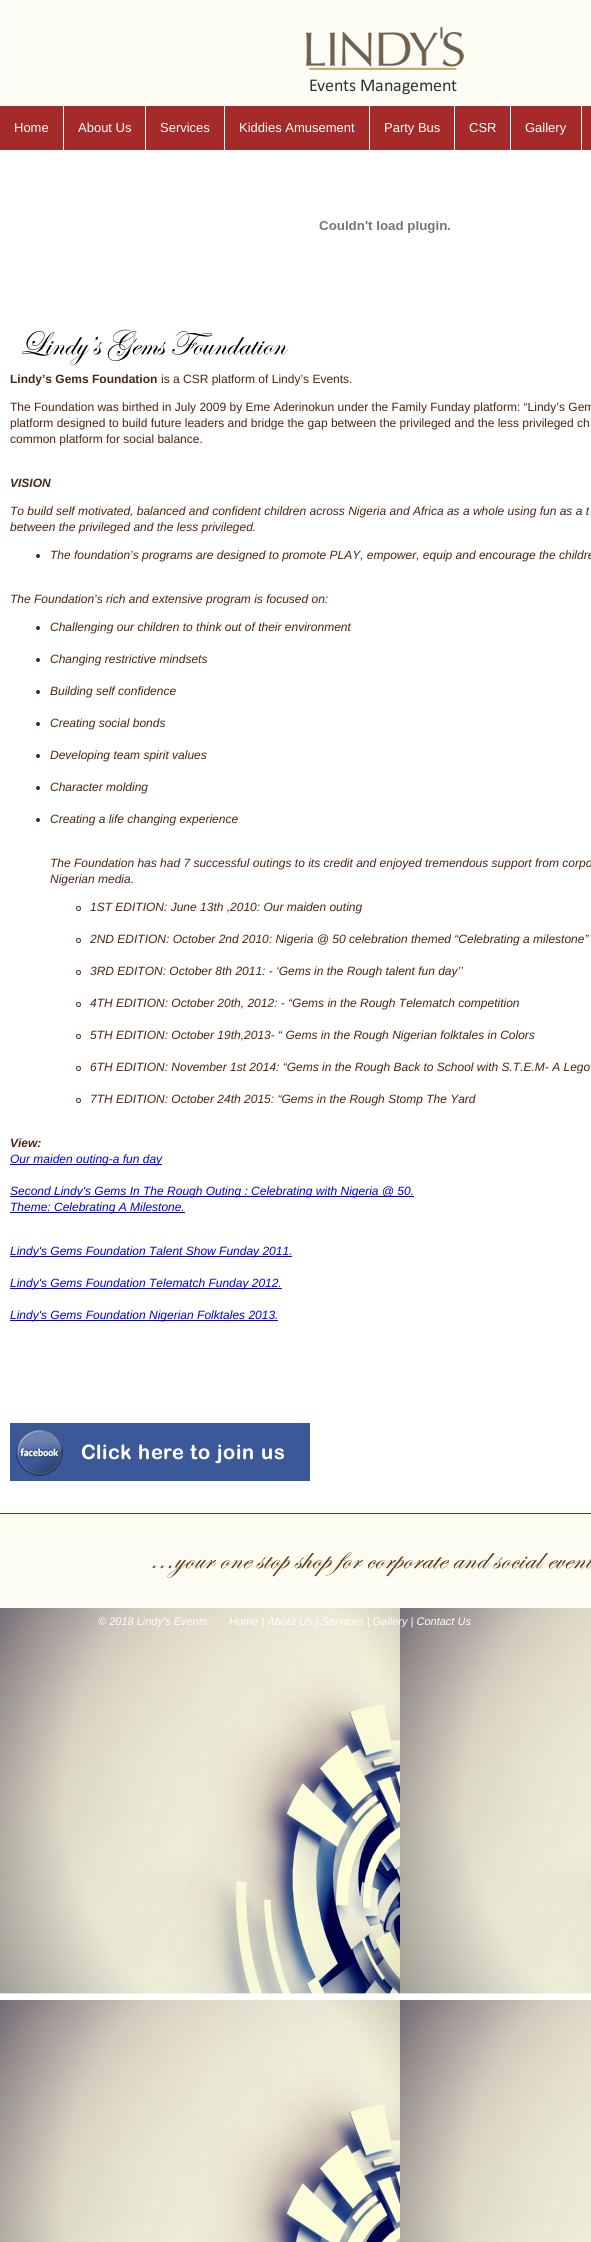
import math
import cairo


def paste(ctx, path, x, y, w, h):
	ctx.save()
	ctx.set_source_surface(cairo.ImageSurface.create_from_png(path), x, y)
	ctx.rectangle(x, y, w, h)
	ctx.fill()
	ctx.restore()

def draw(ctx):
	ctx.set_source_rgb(1, 1, 1)
	ctx.paint()
	paste(ctx, 'media/1.png', 0, 1608, 591, 634)
	paste(ctx, 'media/2.png', 0, 0, 591, 105)
	ctx.set_source_rgb(0.647, 0.165, 0.165)
	ctx.rectangle(0, 106, 63, 44)
	ctx.fill()
	ctx.select_font_face('Liberation Sans')
	ctx.set_font_size(13)
	ctx.set_source_rgb(1, 1, 1)
	ctx.move_to(14, 132)
	ctx.show_text('Home')
	ctx.set_source_rgb(0.647, 0.165, 0.165)
	ctx.rectangle(64, 106, 81, 44)
	ctx.fill()
	ctx.set_source_rgb(1, 1, 1)
	ctx.move_to(78, 132)
	ctx.show_text('About Us')
	ctx.set_source_rgb(0.647, 0.165, 0.165)
	ctx.rectangle(146, 106, 78, 44)
	ctx.fill()
	ctx.set_source_rgb(1, 1, 1)
	ctx.move_to(160, 132)
	ctx.show_text('Services')
	ctx.set_source_rgb(0.647, 0.165, 0.165)
	ctx.rectangle(225, 106, 144, 44)
	ctx.fill()
	ctx.set_source_rgb(1, 1, 1)
	ctx.move_to(239, 132)
	ctx.show_text('Kiddies Amusement')
	ctx.set_source_rgb(0.647, 0.165, 0.165)
	ctx.rectangle(370, 106, 84, 44)
	ctx.fill()
	ctx.set_source_rgb(1, 1, 1)
	ctx.move_to(384, 132)
	ctx.show_text('Party Bus')
	ctx.set_source_rgb(0.647, 0.165, 0.165)
	ctx.rectangle(455, 106, 55, 44)
	ctx.fill()
	ctx.set_source_rgb(1, 1, 1)
	ctx.move_to(469, 132)
	ctx.show_text('CSR')
	ctx.set_source_rgb(0.647, 0.165, 0.165)
	ctx.rectangle(511, 106, 70, 44)
	ctx.fill()
	ctx.set_source_rgb(1, 1, 1)
	ctx.move_to(525, 132)
	ctx.show_text('Gallery')
	ctx.set_source_rgb(0.647, 0.165, 0.165)
	ctx.rectangle(582, 106, 9, 44)
	ctx.fill()
	paste(ctx, 'media/3.png', 319, 221, 131, 12)
	paste(ctx, 'media/4.png', 22, 329, 267, 37)
	ctx.select_font_face('Liberation Sans', cairo.FONT_SLANT_NORMAL, cairo.FONT_WEIGHT_BOLD)
	ctx.set_font_size(12)
	ctx.set_source_rgb(0.29, 0.149, 0.075)
	ctx.move_to(10, 383)
	ctx.show_text('Lindy’s Gems Foundation')
	ctx.select_font_face('Liberation Sans')
	for x, y, s in [
		(161, 383, 'is a CSR platform of Lindy’s Events.'),
		(10, 411, 'The Foundation was birthed in July 2009 by Eme Aderinokun under the Family Funday platform: “Lindy’s Gem'),
		(10, 427, 'platform designed to build future leaders and bridge the gap between the privileged and the less privileged ch'),
		(10, 443, 'common platform for social balance.'),
	]:
		ctx.move_to(x, y)
		ctx.show_text(s)
	ctx.select_font_face('Liberation Sans', cairo.FONT_SLANT_ITALIC, cairo.FONT_WEIGHT_BOLD)
	ctx.move_to(10, 487)
	ctx.show_text('VISION')
	ctx.select_font_face('Liberation Sans', cairo.FONT_SLANT_ITALIC)
	ctx.move_to(10, 515)
	ctx.show_text('To build self motivated, balanced and confident children across Nigeria and Africa as a whole using fun as a t')
	ctx.move_to(10, 531)
	ctx.show_text('between the privileged and the less privileged.')
	ctx.new_path()
	ctx.arc(38, 556, 2, 0, 2 * math.pi)
	ctx.fill()
	ctx.move_to(50, 559)
	ctx.show_text('The foundation’s programs are designed to promote PLAY, empower, equip and encourage the childre')
	ctx.move_to(10, 603)
	ctx.show_text('The Foundation’s rich and extensive program is focused on:')
	ctx.new_path()
	ctx.arc(38, 628, 2, 0, 2 * math.pi)
	ctx.fill()
	ctx.move_to(50, 631)
	ctx.show_text('Challenging our children to think out of their environment')
	ctx.new_path()
	ctx.arc(38, 660, 2, 0, 2 * math.pi)
	ctx.fill()
	ctx.move_to(50, 663)
	ctx.show_text('Changing restrictive mindsets')
	ctx.new_path()
	ctx.arc(38, 692, 2, 0, 2 * math.pi)
	ctx.fill()
	ctx.move_to(50, 695)
	ctx.show_text('Building self confidence')
	ctx.new_path()
	ctx.arc(38, 724, 2, 0, 2 * math.pi)
	ctx.fill()
	ctx.move_to(50, 727)
	ctx.show_text('Creating social bonds')
	ctx.new_path()
	ctx.arc(38, 756, 2, 0, 2 * math.pi)
	ctx.fill()
	ctx.move_to(50, 759)
	ctx.show_text('Developing team spirit values')
	ctx.new_path()
	ctx.arc(38, 788, 2, 0, 2 * math.pi)
	ctx.fill()
	ctx.move_to(50, 791)
	ctx.show_text('Character molding')
	ctx.new_path()
	ctx.arc(38, 820, 2, 0, 2 * math.pi)
	ctx.fill()
	for x, y, s in [
		(50, 823, 'Creating a life changing experience'),
		(50, 867, 'The Foundation has had 7 successful outings to its credit and enjoyed tremendous support from corpo'),
		(50, 883, 'Nigerian media.'),
	]:
		ctx.move_to(x, y)
		ctx.show_text(s)
	ctx.new_path()
	ctx.arc(78.5, 908.5, 2, 0, 2 * math.pi)
	ctx.set_line_width(1)
	ctx.stroke()
	ctx.move_to(90, 911)
	ctx.show_text('1ST EDITION: June 13th ,2010: Our maiden outing')
	ctx.new_path()
	ctx.arc(78.5, 940.5, 2, 0, 2 * math.pi)
	ctx.stroke()
	ctx.move_to(90, 943)
	ctx.show_text('2ND EDITION: October 2nd 2010: Nigeria @ 50 celebration themed “Celebrating a milestone”')
	ctx.new_path()
	ctx.arc(78.5, 972.5, 2, 0, 2 * math.pi)
	ctx.stroke()
	ctx.move_to(90, 975)
	ctx.show_text('3RD EDITON: October 8th 2011: - ‘Gems in the Rough talent fun day’’')
	ctx.new_path()
	ctx.arc(78.5, 1004.5, 2, 0, 2 * math.pi)
	ctx.stroke()
	ctx.move_to(90, 1007)
	ctx.show_text('4TH EDITION: October 20th, 2012: - “Gems in the Rough Telematch competition')
	ctx.new_path()
	ctx.arc(78.5, 1036.5, 2, 0, 2 * math.pi)
	ctx.stroke()
	ctx.move_to(90, 1039)
	ctx.show_text('5TH EDITION: October 19th,2013- “ Gems in the Rough Nigerian folktales in Colors')
	ctx.new_path()
	ctx.arc(78.5, 1068.5, 2, 0, 2 * math.pi)
	ctx.stroke()
	ctx.move_to(90, 1071)
	ctx.show_text('6TH EDITION: November 1st 2014: “Gems in the Rough Back to School with S.T.E.M- A Lego')
	ctx.new_path()
	ctx.arc(78.5, 1100.5, 2, 0, 2 * math.pi)
	ctx.stroke()
	ctx.move_to(90, 1103)
	ctx.show_text('7TH EDITION: October 24th 2015: “Gems in the Rough Stomp The Yard')
	ctx.select_font_face('Liberation Sans', cairo.FONT_SLANT_ITALIC, cairo.FONT_WEIGHT_BOLD)
	ctx.move_to(10, 1147)
	ctx.show_text('View:')
	ctx.set_source_rgb(0, 0, 0.933)
	ctx.rectangle(10, 1164, 152, 1)
	ctx.fill()
	ctx.select_font_face('Liberation Sans', cairo.FONT_SLANT_ITALIC)
	ctx.move_to(10, 1163)
	ctx.show_text('Our maiden outing-a fun day')
	ctx.rectangle(10, 1196, 404, 1)
	ctx.fill()
	ctx.move_to(10, 1195)
	ctx.show_text('Second Lindy\'s Gems In The Rough Outing : Celebrating with Nigeria @ 50.')
	ctx.rectangle(10, 1212, 175, 1)
	ctx.fill()
	ctx.move_to(10, 1211)
	ctx.show_text('Theme: Celebrating A Milestone.')
	ctx.rectangle(10, 1256, 282, 1)
	ctx.fill()
	ctx.move_to(10, 1255)
	ctx.show_text('Lindy\'s Gems Foundation Talent Show Funday 2011.')
	ctx.rectangle(10, 1288, 272, 1)
	ctx.fill()
	ctx.move_to(10, 1287)
	ctx.show_text('Lindy\'s Gems Foundation Telematch Funday 2012.')
	ctx.rectangle(10, 1320, 268, 1)
	ctx.fill()
	ctx.move_to(10, 1319)
	ctx.show_text('Lindy\'s Gems Foundation Nigerian Folktales 2013.')
	paste(ctx, 'media/5.png', 10, 1423, 300, 58)
	paste(ctx, 'media/6.png', 0, 1513, 591, 95)
	ctx.set_font_size(11)
	ctx.set_source_rgb(1, 1, 1)
	ctx.move_to(98, 1625)
	ctx.show_text('© 2018 Lindy\'s Events')
	ctx.move_to(229, 1625)
	ctx.show_text('Home | About Us | Services | Gallery | Contact Us')


surface = cairo.ImageSurface(cairo.FORMAT_RGB24, 591, 2242)
ctx = cairo.Context(surface)
options = cairo.FontOptions()
options.set_hint_metrics(cairo.HINT_METRICS_OFF)
options.set_hint_style(cairo.HINT_STYLE_NONE)
ctx.set_font_options(options)
ctx.set_miter_limit(4)
draw(ctx)
surface.write_to_png('image.png')
